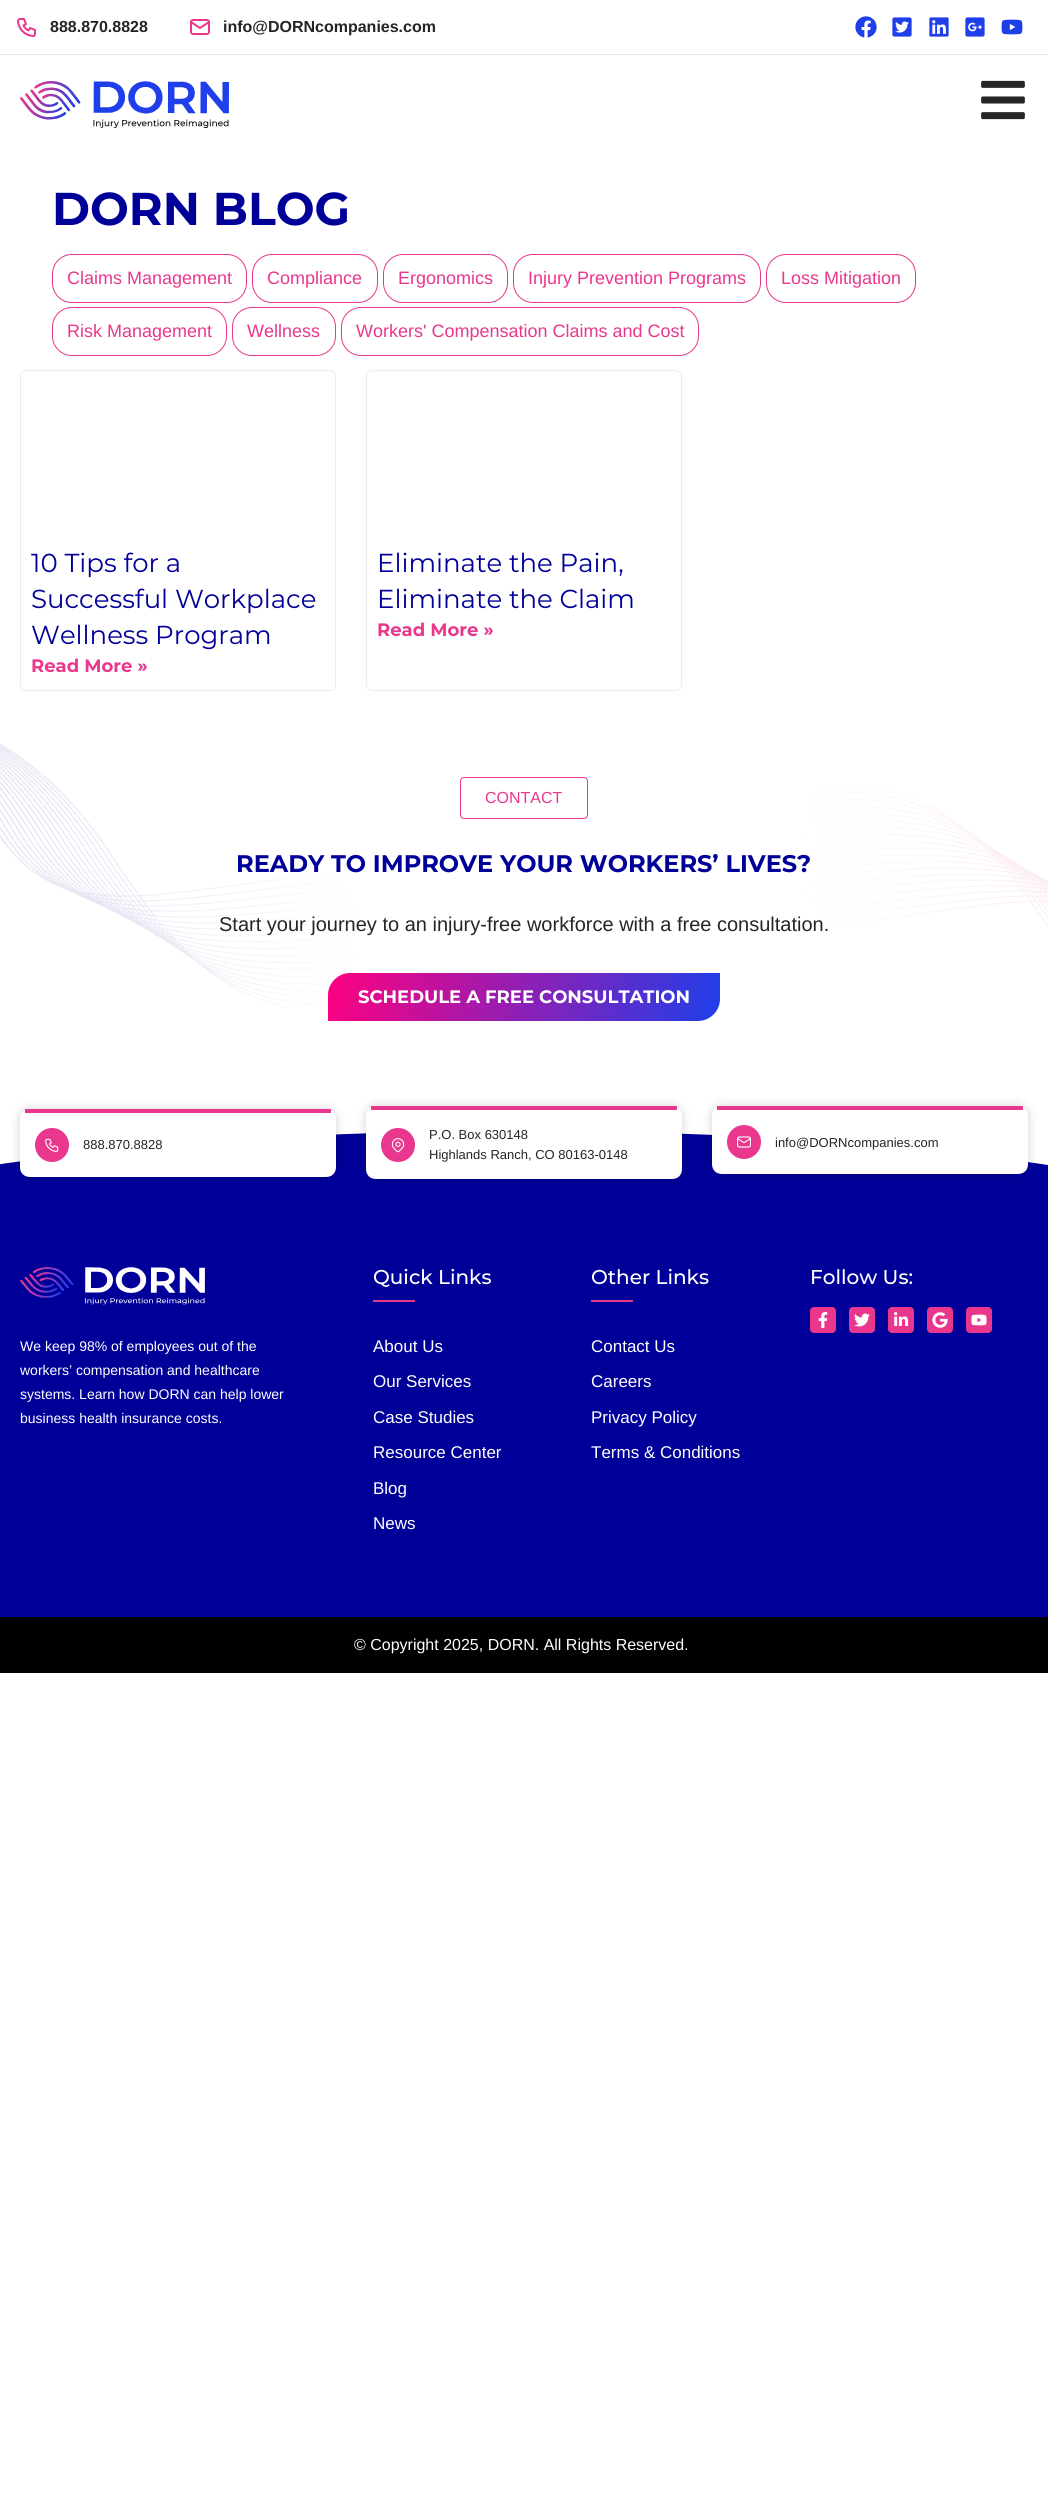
import math
import cairo


def round_path(ctx, x, y, w, h, r):
	ctx.new_sub_path()
	for i, (u, v) in enumerate([(x + w - r, y + h - r), (x + r, y + h - r), (x + r, y + r), (x + w - r, y + r)]):
		ctx.arc(u, v, r, i * math.pi / 2, (i + 1) * math.pi / 2)
	ctx.close_path()

def blur_box(ctx, x, y, w, h, r, blur, alpha):
	ctx.push_group_with_content(cairo.CONTENT_ALPHA)
	ctx.set_operator(cairo.OPERATOR_SOURCE)
	for i in range(15, -16, -2):
		e = blur * i / 6
		if min(w, h) + 2 * e > 0:
			ctx.set_source_rgba(0, 0, 0, alpha * math.erfc((i - 1) / 8.5) / 2)
			round_path(ctx, x - e, y - e, w + 2 * e, h + 2 * e, max(0, min(r + e + blur * .6, min(w, h) / 2 + e)))
			ctx.fill()
	ctx.mask(ctx.pop_group())

def paste(ctx, path, x, y, w, h):
	ctx.save()
	ctx.set_source_surface(cairo.ImageSurface.create_from_png(path), x, y)
	ctx.rectangle(x, y, w, h)
	ctx.fill()
	ctx.restore()

def draw(ctx):
	ctx.set_source_rgb(1, 1, 1)
	ctx.paint()
	ctx.set_source_rgb(0.902, 0.902, 0.902)
	ctx.rectangle(0, 54, 1048, 1)
	ctx.fill()
	paste(ctx, 'media/1.png', 17, 18, 19, 19)
	ctx.select_font_face('Liberation Sans', cairo.FONT_SLANT_NORMAL, cairo.FONT_WEIGHT_BOLD)
	ctx.set_font_size(16)
	ctx.set_source_rgb(0.145, 0.145, 0.145)
	ctx.move_to(50, 32)
	ctx.show_text('888.870.8828')
	paste(ctx, 'media/2.png', 190, 19, 20, 16)
	ctx.move_to(223, 32)
	ctx.show_text('info@DORNcompanies.com')
	paste(ctx, 'media/3.png', 855, 16, 22, 22)
	paste(ctx, 'media/4.png', 892, 17, 20, 20)
	paste(ctx, 'media/5.png', 929, 17, 20, 20)
	paste(ctx, 'media/6.png', 965, 17, 20, 20)
	paste(ctx, 'media/7.png', 1001, 19, 22, 16)
	paste(ctx, 'media/8.png', 20, 81, 209, 47)
	paste(ctx, 'media/9.png', 981, 80, 44, 40)
	ctx.select_font_face('Montserrat', cairo.FONT_SLANT_NORMAL, cairo.FONT_WEIGHT_BOLD)
	ctx.set_font_size(46)
	ctx.set_source_rgb(0, 0, 0.6)
	ctx.move_to(52, 225)
	ctx.show_text('DORN BLOG')
	round_path(ctx, 52.5, 254.5, 194, 48, 19.5)
	ctx.set_source_rgb(0.91, 0.216, 0.549)
	ctx.set_line_width(1)
	ctx.stroke()
	ctx.select_font_face('Liberation Sans')
	ctx.set_font_size(18)
	ctx.move_to(67, 284)
	ctx.show_text('Claims Management')
	round_path(ctx, 252.5, 254.5, 125, 48, 19.5)
	ctx.stroke()
	ctx.move_to(267, 284)
	ctx.show_text('Compliance')
	round_path(ctx, 383.5, 254.5, 124, 48, 19.5)
	ctx.stroke()
	ctx.move_to(398, 284)
	ctx.show_text('Ergonomics')
	round_path(ctx, 513.5, 254.5, 247, 48, 19.5)
	ctx.stroke()
	ctx.move_to(528, 284)
	ctx.show_text('Injury Prevention Programs')
	round_path(ctx, 766.5, 254.5, 149, 48, 19.5)
	ctx.stroke()
	ctx.move_to(781, 284)
	ctx.show_text('Loss Mitigation')
	round_path(ctx, 52.5, 307.5, 174, 48, 19.5)
	ctx.stroke()
	ctx.move_to(67, 337)
	ctx.show_text('Risk Management')
	round_path(ctx, 232.5, 307.5, 103, 48, 19.5)
	ctx.stroke()
	ctx.move_to(247, 337)
	ctx.show_text('Wellness')
	round_path(ctx, 341.5, 307.5, 357, 48, 19.5)
	ctx.stroke()
	ctx.move_to(356, 337)
	ctx.show_text('Workers\' Compensation Claims and Cost')
	round_path(ctx, 20.5, 370.5, 315, 320, 5.5)
	ctx.set_source_rgb(0.922, 0.922, 0.922)
	ctx.stroke()
	ctx.select_font_face('Montserrat')
	ctx.set_font_size(26)
	ctx.set_source_rgb(0, 0, 0.6)
	for x, y, s in [
		(31, 572, '10 Tips for a'),
		(31, 608, 'Successful Workplace'),
		(31, 644, 'Wellness Program'),
	]:
		ctx.move_to(x, y)
		ctx.show_text(s)
	ctx.select_font_face('Montserrat', cairo.FONT_SLANT_NORMAL, cairo.FONT_WEIGHT_BOLD)
	ctx.set_font_size(18)
	ctx.set_source_rgb(0.91, 0.216, 0.549)
	ctx.move_to(31, 672)
	ctx.show_text('Read More »')
	round_path(ctx, 366.5, 370.5, 315, 320, 5.5)
	ctx.set_source_rgb(0.922, 0.922, 0.922)
	ctx.stroke()
	ctx.select_font_face('Montserrat')
	ctx.set_font_size(26)
	ctx.set_source_rgb(0, 0, 0.6)
	ctx.move_to(377, 572)
	ctx.show_text('Eliminate the Pain,')
	ctx.move_to(377, 608)
	ctx.show_text('Eliminate the Claim')
	ctx.select_font_face('Montserrat', cairo.FONT_SLANT_NORMAL, cairo.FONT_WEIGHT_BOLD)
	ctx.set_font_size(18)
	ctx.set_source_rgb(0.91, 0.216, 0.549)
	ctx.move_to(377, 636)
	ctx.show_text('Read More »')
	paste(ctx, 'media/10.png', 0, 743, 1048, 264)
	round_path(ctx, 460.5, 777.5, 127, 41, 3.5)
	ctx.stroke()
	ctx.select_font_face('Liberation Sans')
	ctx.set_font_size(16)
	ctx.move_to(485, 803)
	ctx.show_text('CONTACT')
	ctx.select_font_face('Montserrat', cairo.FONT_SLANT_NORMAL, cairo.FONT_WEIGHT_BOLD)
	ctx.set_font_size(24)
	ctx.set_source_rgb(0, 0, 0.6)
	ctx.move_to(236, 872)
	ctx.show_text('READY TO IMPROVE YOUR WORKERS’ LIVES?')
	ctx.select_font_face('Liberation Sans')
	ctx.set_font_size(20)
	ctx.set_source_rgb(0.145, 0.145, 0.145)
	ctx.move_to(219, 931)
	ctx.show_text('Start your journey to an injury-free workforce with a free consultation.')
	gradient = cairo.LinearGradient(335, 946, 713, 1048)
	gradient.add_color_stop_rgba(0, 1, 0, 0.498, 1)
	gradient.add_color_stop_rgba(1, 0.118, 0.247, 0.918, 1)
	ctx.set_source(gradient)
	ctx.new_path()
	ctx.move_to(350, 973)
	ctx.line_to(720, 973)
	ctx.line_to(720, 999)
	ctx.curve_to(720, 1011, 710, 1021, 698, 1021)
	ctx.line_to(328, 1021)
	ctx.line_to(328, 995)
	ctx.curve_to(328, 983, 338, 973, 350, 973)
	ctx.close_path()
	ctx.fill()
	ctx.select_font_face('Montserrat', cairo.FONT_SLANT_NORMAL, cairo.FONT_WEIGHT_BOLD)
	ctx.set_font_size(18)
	ctx.set_source_rgb(1, 1, 1)
	ctx.move_to(358, 1003)
	ctx.show_text('SCHEDULE A FREE CONSULTATION')
	ctx.set_source_rgb(0, 0, 0.6)
	ctx.rectangle(0, 1133, 1048, 484)
	ctx.fill()
	ctx.set_source_rgb(1, 1, 1)
	ctx.new_path()
	ctx.move_to(524, 1131)
	ctx.curve_to(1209, 1132, 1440, 1266, 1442, 1301)
	ctx.line_to(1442, 1126)
	ctx.line_to(-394, 1126)
	ctx.line_to(-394, 1299)
	ctx.curve_to(-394, 1267, -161, 1130, 524, 1131)
	ctx.close_path()
	ctx.fill()
	ctx.save()
	ctx.set_fill_rule(cairo.FILL_RULE_EVEN_ODD)
	ctx.new_path()
	ctx.move_to(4, 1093)
	ctx.line_to(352, 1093)
	ctx.line_to(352, 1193)
	ctx.line_to(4, 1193)
	ctx.close_path()
	ctx.move_to(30, 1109)
	ctx.line_to(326, 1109)
	ctx.curve_to(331.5, 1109, 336, 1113.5, 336, 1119)
	ctx.line_to(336, 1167)
	ctx.curve_to(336, 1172.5, 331.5, 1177, 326, 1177)
	ctx.line_to(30, 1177)
	ctx.curve_to(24.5, 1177, 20, 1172.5, 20, 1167)
	ctx.line_to(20, 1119)
	ctx.curve_to(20, 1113.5, 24.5, 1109, 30, 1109)
	ctx.close_path()
	ctx.clip()
	ctx.set_source_rgb(0, 0, 0)
	blur_box(ctx, 20, 1109, 316, 68, 10, 5, 0.18)
	ctx.restore()
	ctx.new_path()
	ctx.move_to(30, 1113)
	ctx.line_to(326, 1113)
	ctx.curve_to(332, 1113, 336, 1116, 336, 1119)
	ctx.line_to(336, 1167)
	ctx.curve_to(336, 1173, 332, 1177, 326, 1177)
	ctx.line_to(30, 1177)
	ctx.curve_to(24, 1177, 20, 1173, 20, 1167)
	ctx.line_to(20, 1119)
	ctx.curve_to(20, 1116, 24, 1113, 30, 1113)
	ctx.close_path()
	ctx.fill()
	ctx.set_source_rgb(0.91, 0.216, 0.549)
	ctx.rectangle(25, 1109, 306, 4)
	ctx.fill()
	paste(ctx, 'media/11.png', 35, 1128, 34, 34)
	ctx.select_font_face('Liberation Sans')
	ctx.set_font_size(13)
	ctx.set_source_rgb(0.145, 0.145, 0.145)
	ctx.move_to(83, 1149)
	ctx.show_text('888.870.8828')
	ctx.save()
	ctx.set_fill_rule(cairo.FILL_RULE_EVEN_ODD)
	ctx.new_path()
	ctx.move_to(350, 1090)
	ctx.line_to(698, 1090)
	ctx.line_to(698, 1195)
	ctx.line_to(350, 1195)
	ctx.close_path()
	ctx.move_to(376, 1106)
	ctx.line_to(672, 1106)
	ctx.curve_to(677.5, 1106, 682, 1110.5, 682, 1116)
	ctx.line_to(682, 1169)
	ctx.curve_to(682, 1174.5, 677.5, 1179, 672, 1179)
	ctx.line_to(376, 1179)
	ctx.curve_to(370.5, 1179, 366, 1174.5, 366, 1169)
	ctx.line_to(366, 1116)
	ctx.curve_to(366, 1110.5, 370.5, 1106, 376, 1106)
	ctx.close_path()
	ctx.clip()
	ctx.set_source_rgb(0, 0, 0)
	blur_box(ctx, 366, 1106, 316, 73, 10, 5, 0.18)
	ctx.restore()
	ctx.set_source_rgb(1, 1, 1)
	ctx.new_path()
	ctx.move_to(376, 1110)
	ctx.line_to(672, 1110)
	ctx.curve_to(678, 1110, 682, 1113, 682, 1116)
	ctx.line_to(682, 1169)
	ctx.curve_to(682, 1175, 678, 1179, 672, 1179)
	ctx.line_to(376, 1179)
	ctx.curve_to(370, 1179, 366, 1175, 366, 1169)
	ctx.line_to(366, 1116)
	ctx.curve_to(366, 1113, 370, 1110, 376, 1110)
	ctx.close_path()
	ctx.fill()
	ctx.set_source_rgb(0.91, 0.216, 0.549)
	ctx.rectangle(371, 1106, 306, 4)
	ctx.fill()
	paste(ctx, 'media/12.png', 381, 1128, 34, 34)
	ctx.set_source_rgb(0.145, 0.145, 0.145)
	ctx.move_to(429, 1139)
	ctx.show_text('P.O. Box 630148')
	ctx.move_to(429, 1159)
	ctx.show_text('Highlands Ranch, CO 80163-0148')
	ctx.save()
	ctx.set_fill_rule(cairo.FILL_RULE_EVEN_ODD)
	ctx.new_path()
	ctx.move_to(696, 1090)
	ctx.line_to(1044, 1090)
	ctx.line_to(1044, 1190)
	ctx.line_to(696, 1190)
	ctx.close_path()
	ctx.move_to(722, 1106)
	ctx.line_to(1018, 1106)
	ctx.curve_to(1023.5, 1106, 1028, 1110.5, 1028, 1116)
	ctx.line_to(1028, 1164)
	ctx.curve_to(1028, 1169.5, 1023.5, 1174, 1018, 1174)
	ctx.line_to(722, 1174)
	ctx.curve_to(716.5, 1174, 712, 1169.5, 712, 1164)
	ctx.line_to(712, 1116)
	ctx.curve_to(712, 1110.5, 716.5, 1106, 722, 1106)
	ctx.close_path()
	ctx.clip()
	ctx.set_source_rgb(0, 0, 0)
	blur_box(ctx, 712, 1106, 316, 68, 10, 5, 0.18)
	ctx.restore()
	ctx.set_source_rgb(1, 1, 1)
	ctx.new_path()
	ctx.move_to(722, 1110)
	ctx.line_to(1018, 1110)
	ctx.curve_to(1024, 1110, 1028, 1113, 1028, 1116)
	ctx.line_to(1028, 1164)
	ctx.curve_to(1028, 1170, 1024, 1174, 1018, 1174)
	ctx.line_to(722, 1174)
	ctx.curve_to(716, 1174, 712, 1170, 712, 1164)
	ctx.line_to(712, 1116)
	ctx.curve_to(712, 1113, 716, 1110, 722, 1110)
	ctx.close_path()
	ctx.fill()
	ctx.set_source_rgb(0.91, 0.216, 0.549)
	ctx.rectangle(717, 1106, 306, 4)
	ctx.fill()
	paste(ctx, 'media/13.png', 727, 1125, 34, 34)
	ctx.set_source_rgb(0.145, 0.145, 0.145)
	ctx.move_to(775, 1147)
	ctx.show_text('info@DORNcompanies.com')
	ctx.select_font_face('Montserrat Medium')
	ctx.set_font_size(20)
	ctx.set_source_rgb(1, 1, 1)
	ctx.move_to(373, 1284)
	ctx.show_text('Quick Links')
	ctx.set_source_rgb(0.91, 0.216, 0.549)
	ctx.rectangle(373, 1300, 42, 2)
	ctx.fill()
	ctx.select_font_face('Liberation Sans')
	ctx.set_font_size(17)
	ctx.set_source_rgb(1, 1, 1)
	for x, y, s in [
		(373, 1352, 'About Us'),
		(373, 1387, 'Our Services'),
		(373, 1423, 'Case Studies'),
		(373, 1458, 'Resource Center'),
		(373, 1494, 'Blog'),
		(373, 1529, 'News'),
	]:
		ctx.move_to(x, y)
		ctx.show_text(s)
	ctx.select_font_face('Montserrat Medium')
	ctx.set_font_size(20)
	ctx.move_to(591, 1284)
	ctx.show_text('Other Links')
	ctx.set_source_rgb(0.91, 0.216, 0.549)
	ctx.rectangle(591, 1300, 42, 2)
	ctx.fill()
	ctx.select_font_face('Liberation Sans')
	ctx.set_font_size(17)
	ctx.set_source_rgb(1, 1, 1)
	for x, y, s in [
		(591, 1352, 'Contact Us'),
		(591, 1387, 'Careers'),
		(591, 1423, 'Privacy Policy'),
		(591, 1458, 'Terms & Conditions'),
	]:
		ctx.move_to(x, y)
		ctx.show_text(s)
	ctx.select_font_face('Montserrat Medium')
	ctx.set_font_size(20)
	ctx.move_to(810, 1284)
	ctx.show_text('Follow Us:')
	ctx.set_source_rgb(0.91, 0.216, 0.549)
	round_path(ctx, 810, 1307, 26, 26, 4)
	ctx.fill()
	paste(ctx, 'media/14.png', 818, 1312, 10, 16)
	round_path(ctx, 849, 1307, 26, 26, 4)
	ctx.fill()
	paste(ctx, 'media/15.png', 854, 1313, 16, 14)
	round_path(ctx, 888, 1307, 26, 26, 4)
	ctx.fill()
	paste(ctx, 'media/16.png', 894, 1312, 14, 14)
	round_path(ctx, 927, 1307, 26, 26, 4)
	ctx.fill()
	paste(ctx, 'media/17.png', 932, 1312, 16, 16)
	round_path(ctx, 966, 1307, 26, 26, 4)
	ctx.fill()
	paste(ctx, 'media/18.png', 971, 1314, 16, 12)
	paste(ctx, 'media/19.png', 20, 1267, 185, 38)
	ctx.select_font_face('Liberation Sans')
	ctx.set_font_size(14)
	ctx.set_source_rgb(1, 1, 1)
	for x, y, s in [
		(20, 1351, 'We keep 98% of employees out of the'),
		(20, 1375, 'workers’ compensation and healthcare'),
		(20, 1399, 'systems. Learn how DORN can help lower'),
		(20, 1423, 'business health insurance costs.'),
	]:
		ctx.move_to(x, y)
		ctx.show_text(s)
	ctx.set_source_rgb(0, 0, 0)
	ctx.rectangle(0, 1617, 1048, 56)
	ctx.fill()
	ctx.set_font_size(16)
	ctx.set_source_rgb(1, 1, 1)
	ctx.move_to(354, 1650)
	ctx.show_text('© Copyright 2025, DORN. All Rights Reserved.')


surface = cairo.ImageSurface(cairo.FORMAT_RGB24, 1048, 2497)
ctx = cairo.Context(surface)
options = cairo.FontOptions()
options.set_hint_metrics(cairo.HINT_METRICS_OFF)
options.set_hint_style(cairo.HINT_STYLE_NONE)
ctx.set_font_options(options)
ctx.set_miter_limit(4)
draw(ctx)
surface.write_to_png('image.png')
